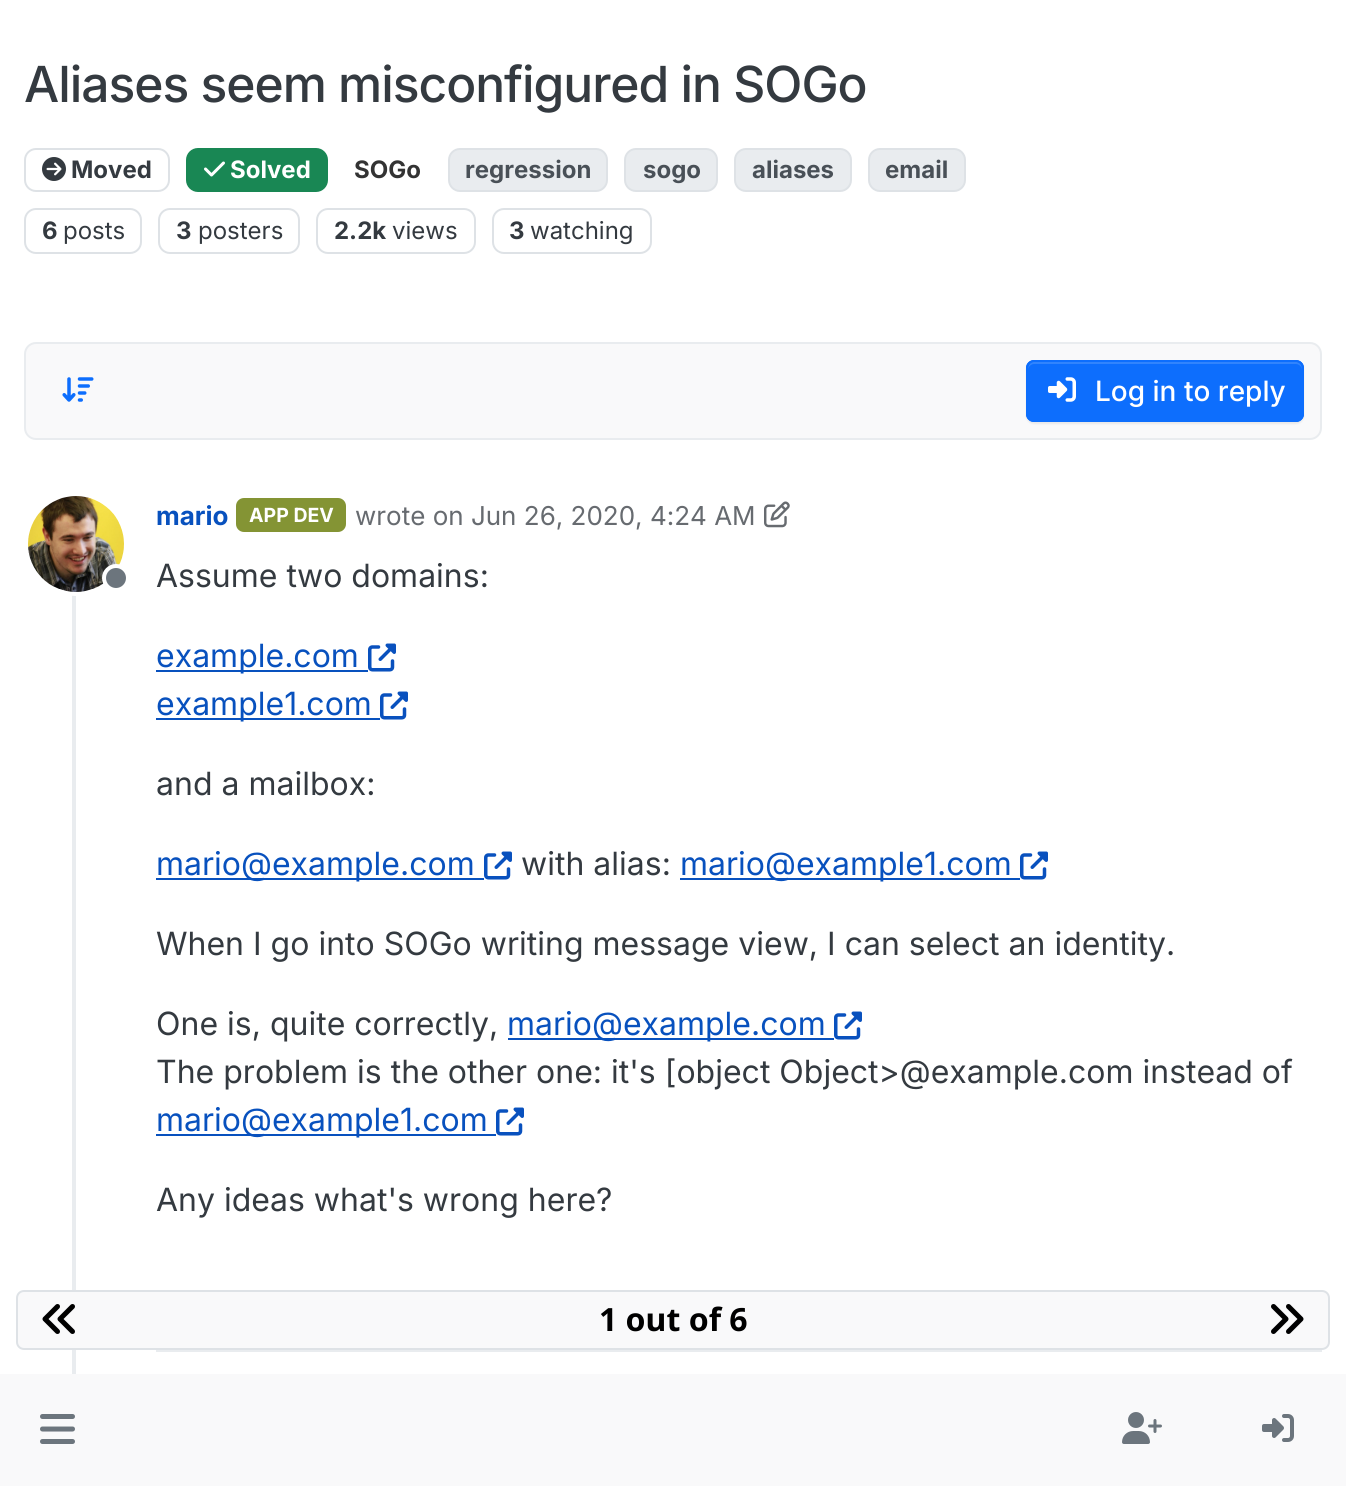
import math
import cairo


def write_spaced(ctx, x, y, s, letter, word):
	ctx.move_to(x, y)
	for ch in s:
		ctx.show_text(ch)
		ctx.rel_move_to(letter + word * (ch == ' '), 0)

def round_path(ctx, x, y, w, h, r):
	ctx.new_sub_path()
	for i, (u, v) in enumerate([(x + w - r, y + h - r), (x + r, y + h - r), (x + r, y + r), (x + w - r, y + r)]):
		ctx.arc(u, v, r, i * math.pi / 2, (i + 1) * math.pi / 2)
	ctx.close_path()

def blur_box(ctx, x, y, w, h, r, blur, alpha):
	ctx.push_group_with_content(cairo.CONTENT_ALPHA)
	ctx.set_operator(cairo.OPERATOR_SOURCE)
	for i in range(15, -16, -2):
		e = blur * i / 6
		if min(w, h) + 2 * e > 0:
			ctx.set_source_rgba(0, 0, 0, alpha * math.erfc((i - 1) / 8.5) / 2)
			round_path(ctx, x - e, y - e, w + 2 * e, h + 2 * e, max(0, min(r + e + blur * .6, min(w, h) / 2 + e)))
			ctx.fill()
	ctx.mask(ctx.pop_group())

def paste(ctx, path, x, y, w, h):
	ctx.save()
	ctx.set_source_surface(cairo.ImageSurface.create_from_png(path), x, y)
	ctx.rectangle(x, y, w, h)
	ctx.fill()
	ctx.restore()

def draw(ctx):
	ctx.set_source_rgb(1, 1, 1)
	ctx.paint()
	ctx.select_font_face('Inter Medium')
	ctx.set_font_size(49.7)
	ctx.set_source_rgb(0.204, 0.227, 0.251)
	write_spaced(ctx, 24, 102, 'Aliases seem misconfigured in SOGo', -1, 0)
	round_path(ctx, 25, 149, 144, 42, 11)
	ctx.set_source_rgb(0.871, 0.886, 0.902)
	ctx.stroke()
	paste(ctx, 'media/1.png', 42, 157, 24, 24)
	ctx.select_font_face('Inter', cairo.FONT_SLANT_NORMAL, cairo.FONT_WEIGHT_BOLD)
	ctx.set_font_size(24)
	ctx.set_source_rgb(0.204, 0.227, 0.251)
	ctx.move_to(71, 178)
	ctx.show_text('Moved')
	ctx.set_source_rgb(0.098, 0.529, 0.329)
	round_path(ctx, 187, 149, 140, 42, 11)
	ctx.fill_preserve()
	ctx.stroke()
	paste(ctx, 'media/2.png', 204, 161, 21, 16)
	ctx.set_source_rgb(1, 1, 1)
	ctx.move_to(230, 178)
	ctx.show_text('Solved')
	ctx.set_source_rgb(0.2, 0.2, 0.2)
	ctx.move_to(354, 178)
	ctx.show_text('SOGo')
	ctx.set_source_rgb(0.914, 0.925, 0.937)
	round_path(ctx, 449, 149, 158, 42, 11)
	ctx.fill_preserve()
	ctx.set_source_rgb(0.871, 0.886, 0.902)
	ctx.stroke()
	ctx.set_source_rgb(0.286, 0.314, 0.341)
	ctx.move_to(465, 178)
	ctx.show_text('regression')
	ctx.set_source_rgb(0.914, 0.925, 0.937)
	round_path(ctx, 625, 149, 92, 42, 11)
	ctx.fill_preserve()
	ctx.set_source_rgb(0.871, 0.886, 0.902)
	ctx.stroke()
	ctx.set_source_rgb(0.286, 0.314, 0.341)
	ctx.move_to(643, 178)
	ctx.show_text('sogo')
	ctx.set_source_rgb(0.914, 0.925, 0.937)
	round_path(ctx, 735, 149, 116, 42, 11)
	ctx.fill_preserve()
	ctx.set_source_rgb(0.871, 0.886, 0.902)
	ctx.stroke()
	ctx.set_source_rgb(0.286, 0.314, 0.341)
	ctx.move_to(752, 178)
	ctx.show_text('aliases')
	ctx.set_source_rgb(0.914, 0.925, 0.937)
	round_path(ctx, 869, 149, 96, 42, 11)
	ctx.fill_preserve()
	ctx.set_source_rgb(0.871, 0.886, 0.902)
	ctx.stroke()
	ctx.set_source_rgb(0.286, 0.314, 0.341)
	ctx.move_to(885, 178)
	ctx.show_text('email')
	round_path(ctx, 25, 209, 116, 44, 11)
	ctx.set_source_rgb(0.871, 0.886, 0.902)
	ctx.stroke()
	ctx.set_source_rgb(0.204, 0.227, 0.251)
	ctx.move_to(42, 239)
	ctx.show_text('6')
	ctx.select_font_face('Inter')
	ctx.move_to(63, 239)
	ctx.show_text('posts')
	round_path(ctx, 159, 209, 140, 44, 11)
	ctx.set_source_rgb(0.871, 0.886, 0.902)
	ctx.stroke()
	ctx.select_font_face('Inter', cairo.FONT_SLANT_NORMAL, cairo.FONT_WEIGHT_BOLD)
	ctx.set_source_rgb(0.204, 0.227, 0.251)
	ctx.move_to(176, 239)
	ctx.show_text('3')
	ctx.select_font_face('Inter')
	ctx.move_to(198, 239)
	ctx.show_text('posters')
	round_path(ctx, 317, 209, 158, 44, 11)
	ctx.set_source_rgb(0.871, 0.886, 0.902)
	ctx.stroke()
	ctx.select_font_face('Inter', cairo.FONT_SLANT_NORMAL, cairo.FONT_WEIGHT_BOLD)
	ctx.set_source_rgb(0.204, 0.227, 0.251)
	ctx.move_to(334, 239)
	ctx.show_text('2.2k')
	ctx.select_font_face('Inter')
	ctx.move_to(392, 239)
	ctx.show_text('views')
	round_path(ctx, 493, 209, 158, 44, 11)
	ctx.set_source_rgb(0.871, 0.886, 0.902)
	ctx.stroke()
	ctx.select_font_face('Inter', cairo.FONT_SLANT_NORMAL, cairo.FONT_WEIGHT_BOLD)
	ctx.set_source_rgb(0.204, 0.227, 0.251)
	ctx.move_to(509, 239)
	ctx.show_text('3')
	ctx.select_font_face('Inter')
	ctx.move_to(530, 239)
	ctx.show_text('watching')
	ctx.set_source_rgb(0.973, 0.976, 0.98)
	round_path(ctx, 25, 343, 1296, 96, 11)
	ctx.fill_preserve()
	ctx.set_source_rgb(0.914, 0.925, 0.937)
	ctx.stroke()
	paste(ctx, 'media/3.png', 62, 377, 32, 25)
	ctx.set_source_rgb(0, 0, 0)
	blur_box(ctx, 1026, 362, 278, 62, 8, 1, 0.07)
	ctx.set_source_rgb(0.051, 0.431, 0.992)
	round_path(ctx, 1026, 360, 278, 62, 8)
	ctx.fill()
	ctx.set_source_rgb(0.192, 0.518, 0.992)
	ctx.new_path()
	ctx.move_to(1034, 364)
	ctx.line_to(1296, 364)
	ctx.curve_to(1299, 364, 1302, 367, 1302, 370)
	ctx.curve_to(1302, 367, 1301, 363, 1297, 362)
	ctx.line_to(1033, 362)
	ctx.curve_to(1029, 363, 1028, 367, 1028, 370)
	ctx.curve_to(1028, 367, 1031, 364, 1034, 364)
	ctx.close_path()
	ctx.fill()
	round_path(ctx, 1027, 361, 276, 60, 7)
	ctx.set_source_rgb(0.051, 0.431, 0.992)
	ctx.stroke()
	paste(ctx, 'media/4.png', 1048, 377, 28, 25)
	ctx.select_font_face('Inter Medium')
	ctx.set_font_size(28)
	ctx.set_source_rgb(1, 1, 1)
	ctx.move_to(1095, 401)
	ctx.show_text('Log in to reply')
	ctx.set_source_rgb(0.914, 0.925, 0.937)
	ctx.rectangle(72, 496, 4, 878)
	ctx.fill()
	ctx.arc(76, 544, 50, 0, 2 * math.pi)
	ctx.set_source_rgb(1, 1, 1)
	ctx.set_line_width(4)
	ctx.stroke()
	paste(ctx, 'media/5.png', 28, 496, 96, 96)
	ctx.set_source_rgb(0.424, 0.459, 0.49)
	ctx.arc(116, 578, 12, 0, 2 * math.pi)
	ctx.fill_preserve()
	ctx.set_source_rgb(1, 1, 1)
	ctx.stroke()
	ctx.select_font_face('Inter', cairo.FONT_SLANT_NORMAL, cairo.FONT_WEIGHT_BOLD)
	ctx.set_font_size(26)
	ctx.set_source_rgb(0.035, 0.318, 0.745)
	ctx.move_to(156, 525)
	ctx.show_text('mario')
	ctx.set_source_rgb(0.518, 0.58, 0.204)
	round_path(ctx, 236, 498, 110, 34, 8)
	ctx.fill()
	ctx.set_font_size(19.5)
	ctx.set_source_rgb(1, 1, 1)
	ctx.move_to(249, 522)
	ctx.show_text('APP DEV')
	ctx.select_font_face('Inter')
	ctx.set_font_size(26)
	ctx.set_source_rgb(0.404, 0.42, 0.439)
	ctx.move_to(355, 525)
	ctx.show_text('wrote on Jun 26, 2020, 4:24 AM')
	paste(ctx, 'media/6.png', 764, 501, 26, 27)
	ctx.set_font_size(32)
	ctx.set_source_rgb(0.204, 0.227, 0.251)
	ctx.move_to(156, 587)
	ctx.show_text('Assume two domains:')
	ctx.set_source_rgb(0.035, 0.318, 0.745)
	ctx.rectangle(156, 670, 212, 2)
	ctx.fill()
	ctx.move_to(156, 667)
	ctx.show_text('example.com')
	paste(ctx, 'media/7.png', 368, 643, 28, 29)
	ctx.rectangle(156, 718, 224, 2)
	ctx.fill()
	ctx.move_to(156, 715)
	ctx.show_text('example1.com')
	paste(ctx, 'media/7.png', 380, 691, 28, 29)
	ctx.set_source_rgb(0.204, 0.227, 0.251)
	ctx.move_to(156, 795)
	ctx.show_text('and a mailbox:')
	ctx.set_source_rgb(0.035, 0.318, 0.745)
	ctx.rectangle(156, 878, 328, 2)
	ctx.fill()
	ctx.move_to(156, 875)
	ctx.show_text('mario@example.com')
	paste(ctx, 'media/7.png', 484, 851, 28, 29)
	ctx.set_source_rgb(0.204, 0.227, 0.251)
	ctx.move_to(521, 875)
	ctx.show_text('with alias:')
	ctx.set_source_rgb(0.035, 0.318, 0.745)
	ctx.rectangle(680, 878, 340, 2)
	ctx.fill()
	ctx.move_to(680, 875)
	ctx.show_text('mario@example1.com')
	paste(ctx, 'media/7.png', 1020, 851, 28, 29)
	ctx.set_source_rgb(0.204, 0.227, 0.251)
	ctx.move_to(156, 955)
	ctx.show_text('When I go into SOGo writing message view, I can select an identity.')
	ctx.move_to(156, 1035)
	ctx.show_text('One is, quite correctly,')
	ctx.set_source_rgb(0.035, 0.318, 0.745)
	ctx.rectangle(508, 1038, 326, 2)
	ctx.fill()
	ctx.move_to(507, 1035)
	ctx.show_text('mario@example.com')
	paste(ctx, 'media/7.png', 834, 1011, 28, 29)
	ctx.set_source_rgb(0.204, 0.227, 0.251)
	ctx.move_to(156, 1083)
	ctx.show_text('The problem is the other one: it\'s [object Object>@example.com instead of')
	ctx.set_source_rgb(0.035, 0.318, 0.745)
	ctx.rectangle(156, 1134, 340, 2)
	ctx.fill()
	ctx.move_to(156, 1131)
	ctx.show_text('mario@example1.com')
	paste(ctx, 'media/7.png', 496, 1107, 28, 29)
	ctx.set_source_rgb(0.204, 0.227, 0.251)
	ctx.move_to(156, 1211)
	ctx.show_text('Any ideas what\'s wrong here?')
	ctx.set_source_rgb(0.914, 0.925, 0.937)
	ctx.rectangle(156, 1350, 1166, 2)
	ctx.fill()
	ctx.set_source_rgb(0.973, 0.976, 0.98)
	round_path(ctx, 17, 1291, 1312, 58, 7)
	ctx.fill_preserve()
	ctx.set_source_rgb(0.871, 0.886, 0.902)
	ctx.set_line_width(2)
	ctx.stroke()
	paste(ctx, 'media/8.png', 42, 1304, 33, 30)
	ctx.select_font_face('Noto Sans', cairo.FONT_SLANT_NORMAL, cairo.FONT_WEIGHT_BOLD)
	ctx.set_source_rgb(0, 0, 0)
	ctx.move_to(599, 1331)
	ctx.show_text('1 out of 6')
	paste(ctx, 'media/9.png', 1271, 1304, 33, 30)
	ctx.set_source_rgb(0.973, 0.976, 0.98)
	ctx.rectangle(0, 1374, 1346, 112)
	ctx.fill()
	paste(ctx, 'media/10.png', 40, 1414, 35, 30)
	paste(ctx, 'media/11.png', 1122, 1412, 40, 32)
	paste(ctx, 'media/12.png', 1262, 1414, 32, 28)


surface = cairo.ImageSurface(cairo.FORMAT_RGB24, 1346, 1486)
ctx = cairo.Context(surface)
options = cairo.FontOptions()
options.set_hint_metrics(cairo.HINT_METRICS_OFF)
options.set_hint_style(cairo.HINT_STYLE_NONE)
ctx.set_font_options(options)
ctx.set_miter_limit(4)
draw(ctx)
surface.write_to_png('image.png')
